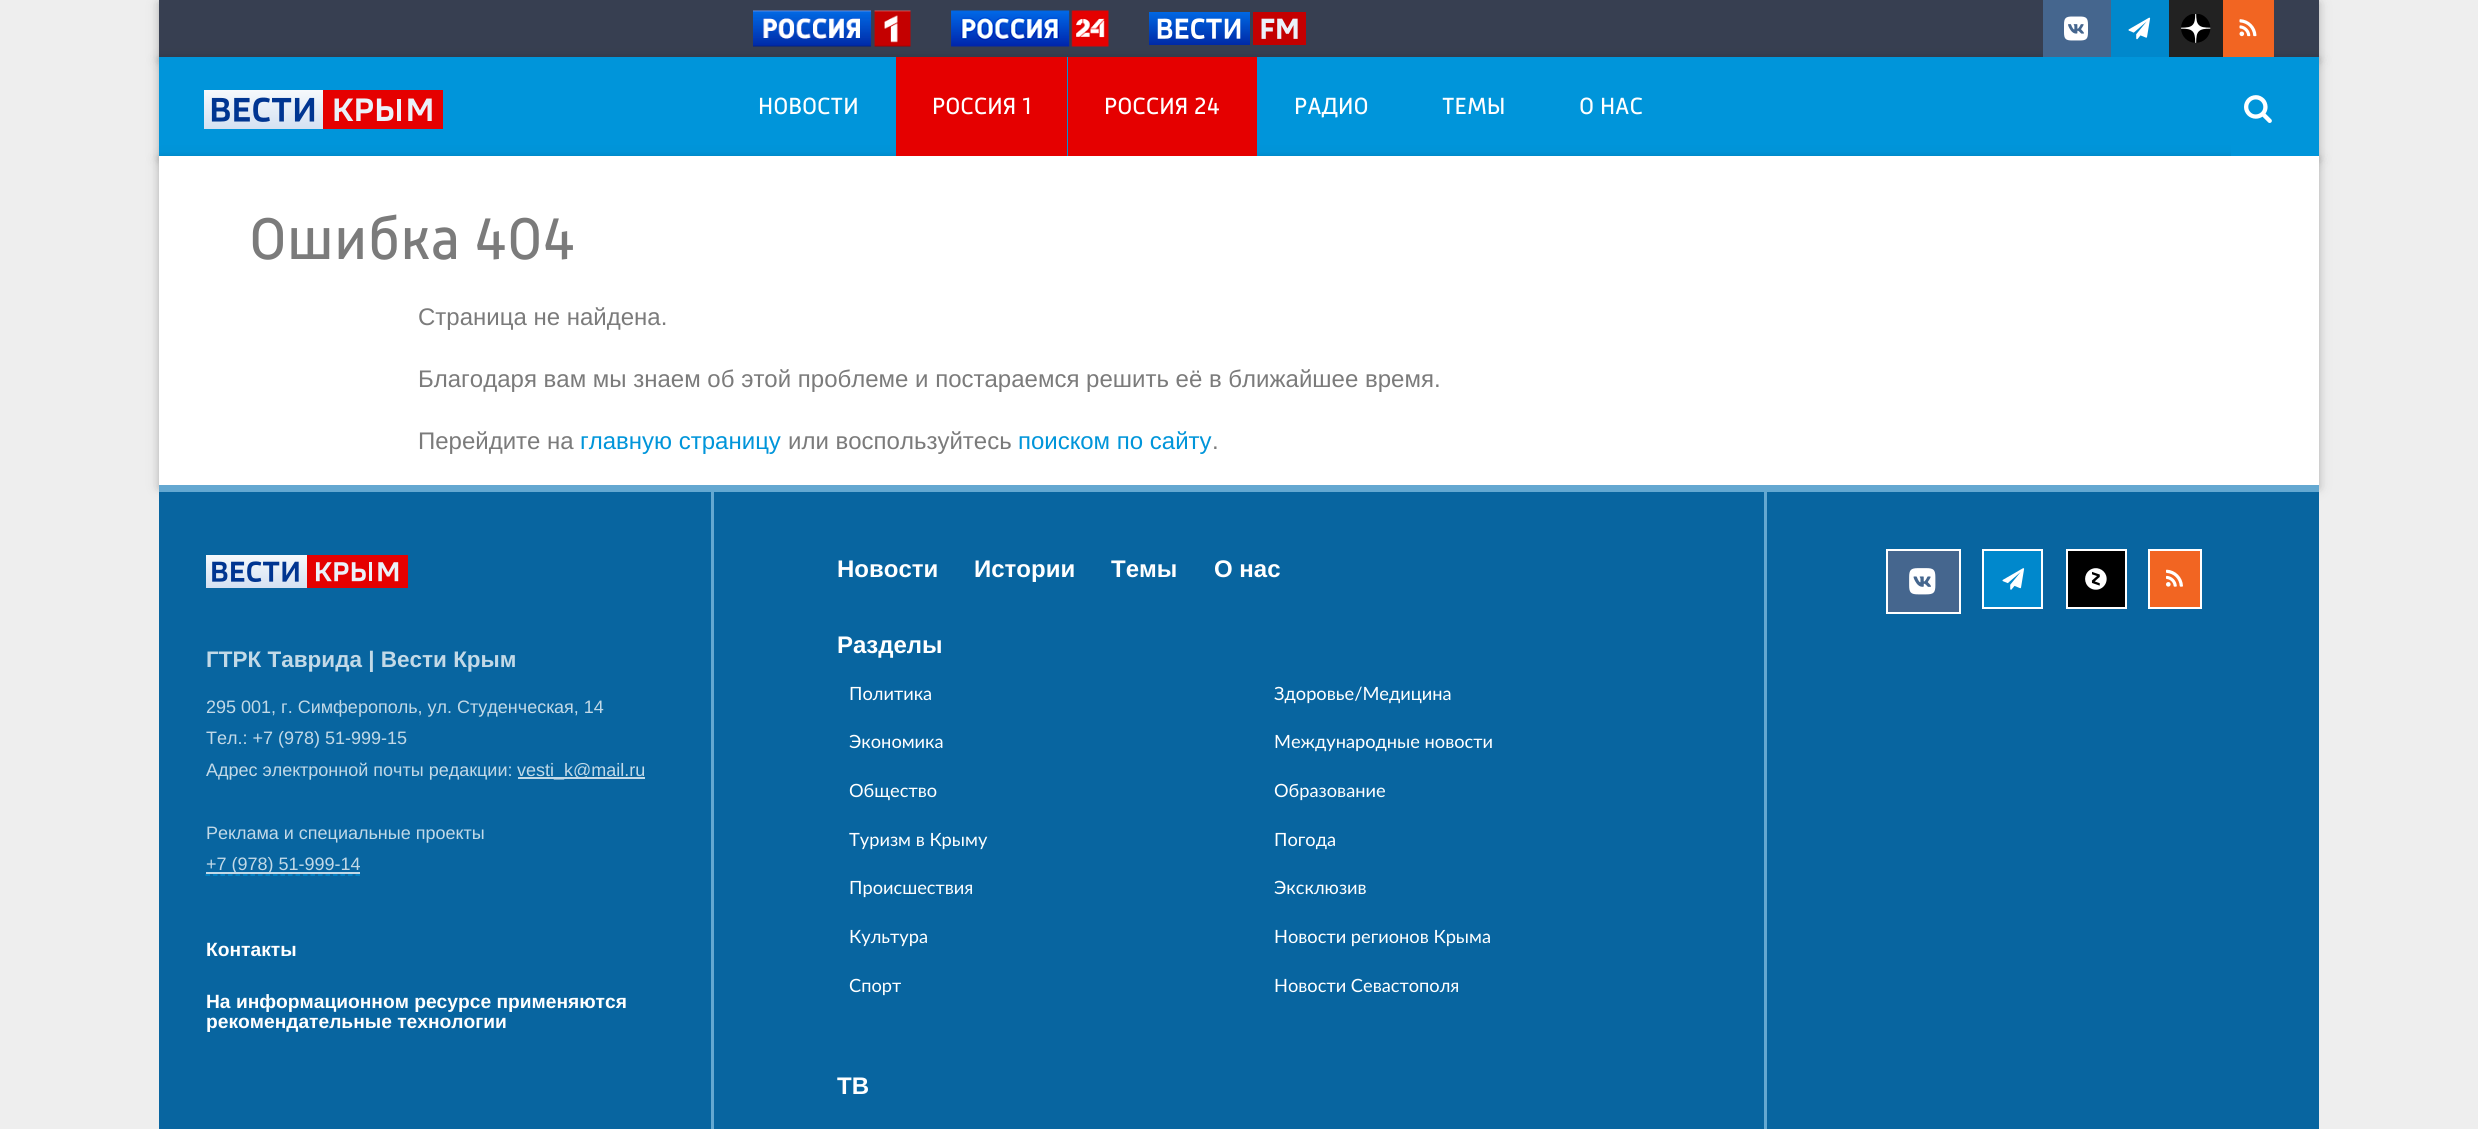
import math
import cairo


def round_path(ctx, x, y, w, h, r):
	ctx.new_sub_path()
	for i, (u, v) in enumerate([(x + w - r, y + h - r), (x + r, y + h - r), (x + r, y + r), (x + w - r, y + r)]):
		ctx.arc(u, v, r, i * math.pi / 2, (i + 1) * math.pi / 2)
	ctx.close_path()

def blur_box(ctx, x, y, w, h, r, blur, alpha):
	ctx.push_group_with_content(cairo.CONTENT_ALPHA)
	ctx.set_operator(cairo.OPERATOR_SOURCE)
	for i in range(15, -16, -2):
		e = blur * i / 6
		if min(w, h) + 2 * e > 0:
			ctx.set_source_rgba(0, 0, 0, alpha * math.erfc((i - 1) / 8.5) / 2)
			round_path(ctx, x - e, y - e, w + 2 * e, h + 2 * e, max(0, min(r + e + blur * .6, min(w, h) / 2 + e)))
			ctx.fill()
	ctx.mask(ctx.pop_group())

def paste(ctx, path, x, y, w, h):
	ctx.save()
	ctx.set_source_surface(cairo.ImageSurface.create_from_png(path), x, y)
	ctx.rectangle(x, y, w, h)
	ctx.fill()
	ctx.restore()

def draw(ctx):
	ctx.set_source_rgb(0.933, 0.933, 0.933)
	ctx.paint()
	ctx.set_source_rgb(0, 0, 0)
	blur_box(ctx, 159, 3, 2160, 57, 0, 7.5, 0.12)
	blur_box(ctx, 159, 3, 2160, 57, 0, 4, 0.16)
	ctx.set_source_rgb(0.216, 0.247, 0.318)
	ctx.rectangle(159, 0, 2160, 57)
	ctx.fill()
	ctx.set_source_rgb(0, 0, 0)
	blur_box(ctx, 159, 60, 2160, 99, 0, 7.5, 0.12)
	paste(ctx, 'media/1.png', 753, 10, 158, 37)
	paste(ctx, 'media/2.png', 951, 10, 158, 37)
	paste(ctx, 'media/3.png', 1149, 12, 157, 33)
	blur_box(ctx, 159, 60, 2160, 99, 0, 4, 0.16)
	ctx.set_source_rgb(0.271, 0.4, 0.557)
	ctx.rectangle(2043, 0, 68, 57)
	ctx.fill()
	paste(ctx, 'media/4.png', 2064, 16, 24, 25)
	ctx.set_source_rgb(0, 0.533, 0.8)
	ctx.rectangle(2111, 0, 58, 57)
	ctx.fill()
	paste(ctx, 'media/5.png', 2128, 17, 23, 23)
	ctx.set_source_rgb(0.133, 0.133, 0.133)
	ctx.rectangle(2169, 0, 54, 57)
	ctx.fill()
	paste(ctx, 'media/6.png', 2181, 14, 30, 29)
	ctx.set_source_rgb(0.949, 0.396, 0.133)
	ctx.rectangle(2223, 0, 51, 57)
	ctx.fill()
	paste(ctx, 'media/7.png', 2239, 19, 18, 18)
	ctx.set_source_rgb(0, 0.584, 0.855)
	ctx.rectangle(159, 57, 2072, 99)
	ctx.fill()
	paste(ctx, 'media/8.png', 204, 90, 239, 39)
	ctx.select_font_face('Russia')
	ctx.set_font_size(24)
	ctx.set_source_rgb(1, 1, 1)
	ctx.move_to(758, 114)
	ctx.show_text('НОВОСТИ')
	ctx.set_source_rgb(0, 0, 0)
	blur_box(ctx, 159, 159, 2160, 329, 0, 7.5, 0.12)
	blur_box(ctx, 159, 159, 2160, 329, 0, 4, 0.16)
	ctx.set_source_rgb(0.898, 0, 0)
	ctx.rectangle(896, 57, 171, 99)
	ctx.fill()
	ctx.set_source_rgb(1, 1, 1)
	ctx.move_to(932, 114)
	ctx.show_text('РОССИЯ 1')
	ctx.set_source_rgb(0.898, 0, 0)
	ctx.rectangle(1068, 57, 189, 99)
	ctx.fill()
	ctx.set_source_rgb(1, 1, 1)
	for x, y, s in [
		(1104, 114, 'РОССИЯ 24'),
		(1294, 114, 'РАДИО'),
		(1442, 114, 'ТЕМЫ'),
		(1579, 114, 'О НАС'),
	]:
		ctx.move_to(x, y)
		ctx.show_text(s)
	ctx.set_source_rgb(0, 0.584, 0.855)
	ctx.rectangle(2231, 57, 88, 99)
	ctx.fill()
	paste(ctx, 'media/9.png', 2244, 95, 28, 28)
	ctx.set_source_rgb(1, 1, 1)
	ctx.rectangle(159, 156, 2160, 329)
	ctx.fill()
	ctx.set_font_size(60)
	ctx.set_source_rgb(0.482, 0.482, 0.482)
	ctx.move_to(249, 259)
	ctx.show_text('Ошибка 404')
	ctx.select_font_face('Liberation Sans')
	ctx.set_font_size(24)
	for x, y, s in [
		(418, 325, 'Страница не найдена.'),
		(418, 387, 'Благодаря вам мы знаем об этой проблеме и постараемся решить её в ближайшее время.'),
		(418, 449, 'Перейдите на'),
	]:
		ctx.move_to(x, y)
		ctx.show_text(s)
	ctx.set_source_rgb(0, 0.584, 0.855)
	ctx.move_to(580, 449)
	ctx.show_text('главную страницу')
	ctx.set_source_rgb(0.482, 0.482, 0.482)
	ctx.move_to(788, 449)
	ctx.show_text('или воспользуйтесь')
	ctx.set_source_rgb(0, 0.584, 0.855)
	ctx.move_to(1018, 449)
	ctx.show_text('поиском по сайту')
	ctx.set_source_rgb(0.482, 0.482, 0.482)
	ctx.move_to(1212, 449)
	ctx.show_text('.')
	ctx.set_source_rgb(0.035, 0.396, 0.627)
	ctx.rectangle(159, 492, 2160, 637)
	ctx.fill()
	ctx.set_source_rgb(0.392, 0.659, 0.82)
	ctx.rectangle(159, 485, 2160, 7)
	ctx.fill()
	paste(ctx, 'media/10.png', 206, 555, 202, 33)
	ctx.select_font_face('Liberation Sans', cairo.FONT_SLANT_NORMAL, cairo.FONT_WEIGHT_BOLD)
	ctx.set_font_size(22.5)
	ctx.set_source_rgb(0.761, 0.851, 0.906)
	ctx.move_to(206, 667)
	ctx.show_text('ГТРК Таврида | Вести Крым')
	ctx.select_font_face('Liberation Sans')
	ctx.set_font_size(18)
	for x, y, s in [
		(206, 713, '295 001, г. Симферополь, ул. Студенческая, 14'),
		(206, 744, 'Тел.: +7 (978) 51-999-15'),
		(206, 776, 'Адрес электронной почты редакции:'),
	]:
		ctx.move_to(x, y)
		ctx.show_text(s)
	ctx.rectangle(518, 777, 127, 2)
	ctx.fill()
	ctx.move_to(517, 776)
	ctx.show_text('vesti_k@mail.ru')
	ctx.move_to(206, 839)
	ctx.show_text('Реклама и специальные проекты')
	ctx.rectangle(206, 872, 154, 2)
	ctx.fill()
	ctx.move_to(206, 870)
	ctx.show_text('+7 (978) 51-999-14')
	ctx.new_path()
	ctx.move_to(205.5, 875)
	ctx.line_to(360, 875)
	ctx.set_source_rgb(0.008, 0.537, 0.8)
	ctx.set_line_width(1.5)
	ctx.set_dash([4.5, 3])
	ctx.stroke()
	ctx.select_font_face('Liberation Sans', cairo.FONT_SLANT_NORMAL, cairo.FONT_WEIGHT_BOLD)
	ctx.set_font_size(19.2)
	ctx.set_source_rgb(1, 1, 1)
	for x, y, s in [
		(206, 956, 'Контакты'),
		(206, 1008, 'На информационном ресурсе применяются'),
		(206, 1028, 'рекомендательные технологии'),
	]:
		ctx.move_to(x, y)
		ctx.show_text(s)
	ctx.set_source_rgb(0.392, 0.659, 0.82)
	ctx.rectangle(1764, 492, 3, 637)
	ctx.fill()
	ctx.rectangle(711, 492, 3, 637)
	ctx.fill()
	ctx.set_font_size(24)
	ctx.set_source_rgb(1, 1, 1)
	for x, y, s in [
		(837, 577, 'Новости'),
		(974, 577, 'Истории'),
		(1111, 577, 'Темы'),
		(1214, 577, 'О нас'),
		(837, 653, 'Разделы'),
	]:
		ctx.move_to(x, y)
		ctx.show_text(s)
	ctx.select_font_face('Lato')
	ctx.set_font_size(18.25)
	for x, y, s in [
		(849, 700, 'Политика'),
		(1274, 700, 'Здоровье/Медицина'),
		(849, 748, 'Экономика'),
		(1274, 748, 'Международные новости'),
		(849, 797, 'Общество'),
		(1274, 797, 'Образование'),
		(849, 846, 'Туризм в Крыму'),
		(1274, 846, 'Погода'),
		(849, 894, 'Происшествия'),
		(1274, 894, 'Эксклюзив'),
		(849, 943, 'Культура'),
		(1274, 943, 'Новости регионов Крыма'),
		(849, 992, 'Спорт'),
		(1274, 992, 'Новости Севастополя'),
	]:
		ctx.move_to(x, y)
		ctx.show_text(s)
	ctx.select_font_face('Liberation Sans', cairo.FONT_SLANT_NORMAL, cairo.FONT_WEIGHT_BOLD)
	ctx.set_font_size(24)
	ctx.move_to(837, 1094)
	ctx.show_text('ТВ')
	ctx.set_source_rgb(0.271, 0.4, 0.557)
	ctx.rectangle(1887, 550, 73, 63)
	ctx.fill_preserve()
	ctx.set_source_rgb(1, 1, 1)
	ctx.set_line_width(2)
	ctx.set_dash([])
	ctx.stroke()
	paste(ctx, 'media/11.png', 1909, 568, 27, 27)
	ctx.set_source_rgb(0, 0.533, 0.8)
	ctx.rectangle(1983, 550, 59, 58)
	ctx.fill_preserve()
	ctx.set_source_rgb(1, 1, 1)
	ctx.stroke()
	paste(ctx, 'media/12.png', 2002, 568, 23, 22)
	ctx.set_source_rgb(0, 0, 0)
	ctx.rectangle(2067, 550, 59, 58)
	ctx.fill_preserve()
	ctx.set_source_rgb(1, 1, 1)
	ctx.stroke()
	paste(ctx, 'media/13.png', 2085, 568, 22, 22)
	ctx.set_source_rgb(0.949, 0.396, 0.133)
	ctx.rectangle(2149, 550, 52, 58)
	ctx.fill_preserve()
	ctx.set_source_rgb(1, 1, 1)
	ctx.stroke()
	paste(ctx, 'media/14.png', 2166, 569, 17, 18)


surface = cairo.ImageSurface(cairo.FORMAT_RGB24, 2478, 1129)
ctx = cairo.Context(surface)
options = cairo.FontOptions()
options.set_hint_metrics(cairo.HINT_METRICS_OFF)
options.set_hint_style(cairo.HINT_STYLE_NONE)
ctx.set_font_options(options)
ctx.set_miter_limit(4)
draw(ctx)
surface.write_to_png('image.png')
